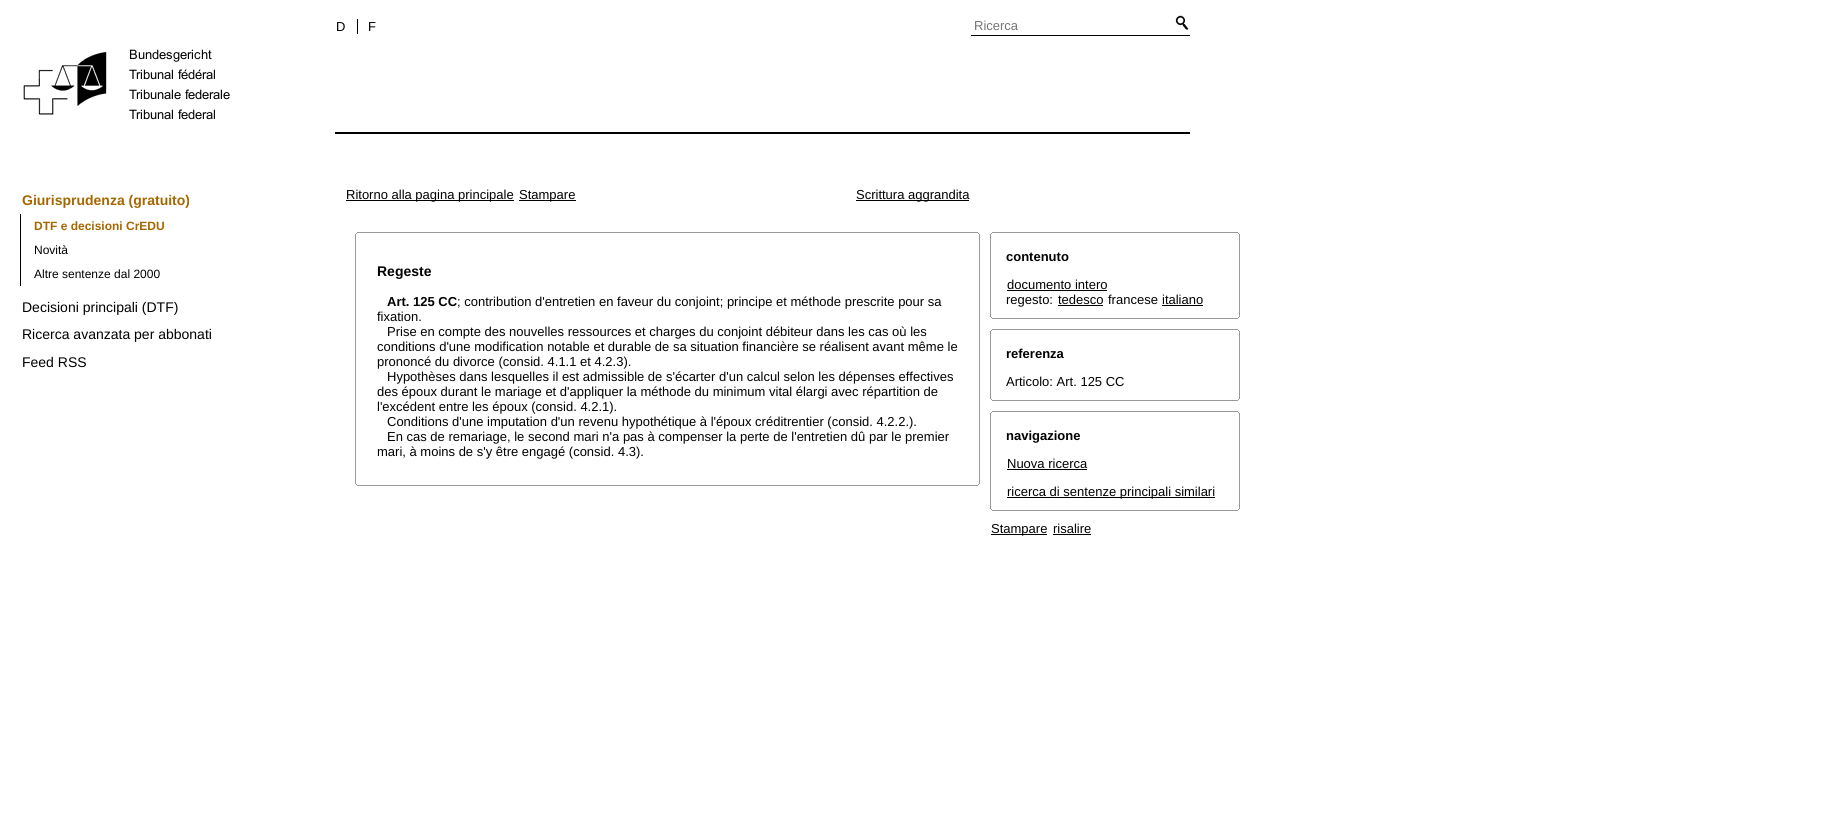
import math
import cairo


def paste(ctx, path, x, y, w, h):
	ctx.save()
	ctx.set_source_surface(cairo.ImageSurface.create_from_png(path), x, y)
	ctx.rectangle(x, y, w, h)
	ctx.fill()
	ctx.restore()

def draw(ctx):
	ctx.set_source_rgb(1, 1, 1)
	ctx.paint()
	ctx.select_font_face('Liberation Sans')
	ctx.set_font_size(13)
	ctx.set_source_rgb(0, 0, 0)
	ctx.move_to(336, 31)
	ctx.show_text('D')
	ctx.rectangle(357, 19, 1, 15)
	ctx.fill()
	ctx.move_to(368, 31)
	ctx.show_text('F')
	ctx.rectangle(971, 35, 219, 1)
	ctx.fill()
	ctx.set_source_rgb(0.459, 0.459, 0.459)
	ctx.move_to(974, 30)
	ctx.show_text('Ricerca')
	paste(ctx, 'media/1.png', 1175, 15, 14, 15)
	ctx.set_source_rgb(0, 0, 0)
	ctx.rectangle(335, 132, 855, 2)
	ctx.fill()
	paste(ctx, 'media/2.png', 23, 49, 207, 71)
	ctx.select_font_face('Liberation Sans', cairo.FONT_SLANT_NORMAL, cairo.FONT_WEIGHT_BOLD)
	ctx.set_font_size(14)
	ctx.set_source_rgb(0.655, 0.404, 0)
	ctx.move_to(22, 205)
	ctx.show_text('Giurisprudenza (gratuito)')
	ctx.set_source_rgb(0, 0, 0)
	ctx.rectangle(20, 214, 1, 72)
	ctx.fill()
	ctx.set_font_size(12)
	ctx.set_source_rgb(0.655, 0.404, 0)
	ctx.move_to(34, 230)
	ctx.show_text('DTF e decisioni CrEDU')
	ctx.select_font_face('Liberation Sans')
	ctx.set_source_rgb(0, 0, 0)
	ctx.move_to(34, 254)
	ctx.show_text('Novità')
	ctx.move_to(34, 278)
	ctx.show_text('Altre sentenze dal 2000')
	ctx.set_font_size(14)
	for x, y, s in [
		(22, 312, 'Decisioni principali (DTF)'),
		(22, 339, 'Ricerca avanzata per abbonati'),
		(22, 367, 'Feed RSS'),
	]:
		ctx.move_to(x, y)
		ctx.show_text(s)
	ctx.rectangle(346, 200, 168, 1)
	ctx.fill()
	ctx.set_font_size(13)
	ctx.move_to(346, 199)
	ctx.show_text('Ritorno alla pagina principale')
	ctx.rectangle(519, 200, 57, 1)
	ctx.fill()
	ctx.move_to(519, 199)
	ctx.show_text('Stampare')
	ctx.rectangle(856, 200, 113, 1)
	ctx.fill()
	ctx.move_to(856, 199)
	ctx.show_text('Scrittura aggrandita')
	ctx.set_source_rgb(0.6, 0.6, 0.6)
	ctx.rectangle(357, 232, 621, 1)
	ctx.rectangle(978, 233, 1, 1)
	ctx.rectangle(356, 233, 1, 1)
	ctx.rectangle(979, 234, 1, 250)
	ctx.rectangle(355, 234, 1, 250)
	ctx.fill()
	ctx.select_font_face('Liberation Sans', cairo.FONT_SLANT_NORMAL, cairo.FONT_WEIGHT_BOLD)
	ctx.set_font_size(14)
	ctx.set_source_rgb(0, 0, 0)
	ctx.move_to(377, 276)
	ctx.show_text('Regeste')
	ctx.set_font_size(13)
	ctx.move_to(387, 306)
	ctx.show_text('Art. 125 CC')
	ctx.select_font_face('Liberation Sans')
	for x, y, s in [
		(457, 306, '; contribution d\'entretien en faveur du conjoint; principe et méthode prescrite pour sa'),
		(377, 321, 'fixation.'),
		(387, 336, 'Prise en compte des nouvelles ressources et charges du conjoint débiteur dans les cas où les'),
		(377, 351, 'conditions d\'une modification notable et durable de sa situation financière se réalisent avant même le'),
		(377, 366, 'prononcé du divorce (consid. 4.1.1 et 4.2.3).'),
		(387, 381, 'Hypothèses dans lesquelles il est admissible de s\'écarter d\'un calcul selon les dépenses effectives'),
		(377, 396, 'des époux durant le mariage et d\'appliquer la méthode du minimum vital élargi avec répartition de'),
		(377, 411, 'l\'excédent entre les époux (consid. 4.2.1).'),
		(387, 426, 'Conditions d\'une imputation d\'un revenu hypothétique à l\'époux créditrentier (consid. 4.2.2.).'),
		(387, 441, 'En cas de remariage, le second mari n\'a pas à compenser la perte de l\'entretien dû par le premier'),
		(377, 456, 'mari, à moins de s\'y être engagé (consid. 4.3).'),
	]:
		ctx.move_to(x, y)
		ctx.show_text(s)
	ctx.set_source_rgb(0.6, 0.6, 0.6)
	ctx.rectangle(978, 484, 1, 1)
	ctx.rectangle(356, 484, 1, 1)
	ctx.rectangle(357, 485, 621, 1)
	ctx.rectangle(992, 232, 246, 1)
	ctx.rectangle(1238, 233, 1, 1)
	ctx.rectangle(991, 233, 1, 1)
	ctx.rectangle(1239, 234, 1, 83)
	ctx.rectangle(990, 234, 1, 83)
	ctx.fill()
	ctx.select_font_face('Liberation Sans', cairo.FONT_SLANT_NORMAL, cairo.FONT_WEIGHT_BOLD)
	ctx.set_source_rgb(0, 0, 0)
	ctx.move_to(1006, 261)
	ctx.show_text('contenuto')
	ctx.select_font_face('Liberation Sans')
	ctx.move_to(1007, 289)
	ctx.show_text('documento intero')
	ctx.rectangle(1007, 290, 100, 1)
	ctx.fill()
	ctx.move_to(1006, 304)
	ctx.show_text('regesto:')
	ctx.move_to(1058, 304)
	ctx.show_text('tedesco')
	ctx.rectangle(1058, 305, 45, 1)
	ctx.fill()
	ctx.move_to(1108, 304)
	ctx.show_text('francese')
	ctx.move_to(1162, 304)
	ctx.show_text('italiano')
	ctx.rectangle(1162, 305, 41, 1)
	ctx.fill()
	ctx.set_source_rgb(0.6, 0.6, 0.6)
	ctx.rectangle(1238, 317, 1, 1)
	ctx.rectangle(991, 317, 1, 1)
	ctx.rectangle(992, 318, 246, 1)
	ctx.rectangle(992, 329, 246, 1)
	ctx.rectangle(1238, 330, 1, 1)
	ctx.rectangle(991, 330, 1, 1)
	ctx.rectangle(1239, 331, 1, 68)
	ctx.rectangle(990, 331, 1, 68)
	ctx.fill()
	ctx.select_font_face('Liberation Sans', cairo.FONT_SLANT_NORMAL, cairo.FONT_WEIGHT_BOLD)
	ctx.set_source_rgb(0, 0, 0)
	ctx.move_to(1006, 358)
	ctx.show_text('referenza')
	ctx.select_font_face('Liberation Sans')
	ctx.move_to(1006, 386)
	ctx.show_text('Articolo: Art. 125 CC')
	ctx.set_source_rgb(0.6, 0.6, 0.6)
	ctx.rectangle(1238, 399, 1, 1)
	ctx.rectangle(991, 399, 1, 1)
	ctx.rectangle(992, 400, 246, 1)
	ctx.rectangle(992, 411, 246, 1)
	ctx.rectangle(1238, 412, 1, 1)
	ctx.rectangle(991, 412, 1, 1)
	ctx.rectangle(1239, 413, 1, 96)
	ctx.rectangle(990, 413, 1, 96)
	ctx.fill()
	ctx.select_font_face('Liberation Sans', cairo.FONT_SLANT_NORMAL, cairo.FONT_WEIGHT_BOLD)
	ctx.set_source_rgb(0, 0, 0)
	ctx.move_to(1006, 440)
	ctx.show_text('navigazione')
	ctx.select_font_face('Liberation Sans')
	ctx.move_to(1007, 468)
	ctx.show_text('Nuova ricerca')
	ctx.rectangle(1007, 469, 80, 1)
	ctx.fill()
	ctx.rectangle(1007, 497, 208, 1)
	ctx.fill()
	ctx.move_to(1007, 496)
	ctx.show_text('ricerca di sentenze principali similari')
	ctx.set_source_rgb(0.6, 0.6, 0.6)
	ctx.rectangle(1238, 509, 1, 1)
	ctx.rectangle(991, 509, 1, 1)
	ctx.rectangle(992, 510, 246, 1)
	ctx.fill()
	ctx.set_source_rgb(0, 0, 0)
	ctx.rectangle(991, 534, 56, 1)
	ctx.fill()
	ctx.move_to(991, 533)
	ctx.show_text('Stampare')
	ctx.move_to(1053, 533)
	ctx.show_text('risalire')
	ctx.rectangle(1053, 534, 38, 1)
	ctx.fill()


surface = cairo.ImageSurface(cairo.FORMAT_RGB24, 1838, 825)
ctx = cairo.Context(surface)
options = cairo.FontOptions()
options.set_hint_metrics(cairo.HINT_METRICS_OFF)
options.set_hint_style(cairo.HINT_STYLE_NONE)
ctx.set_font_options(options)
ctx.set_miter_limit(4)
draw(ctx)
surface.write_to_png('image.png')
